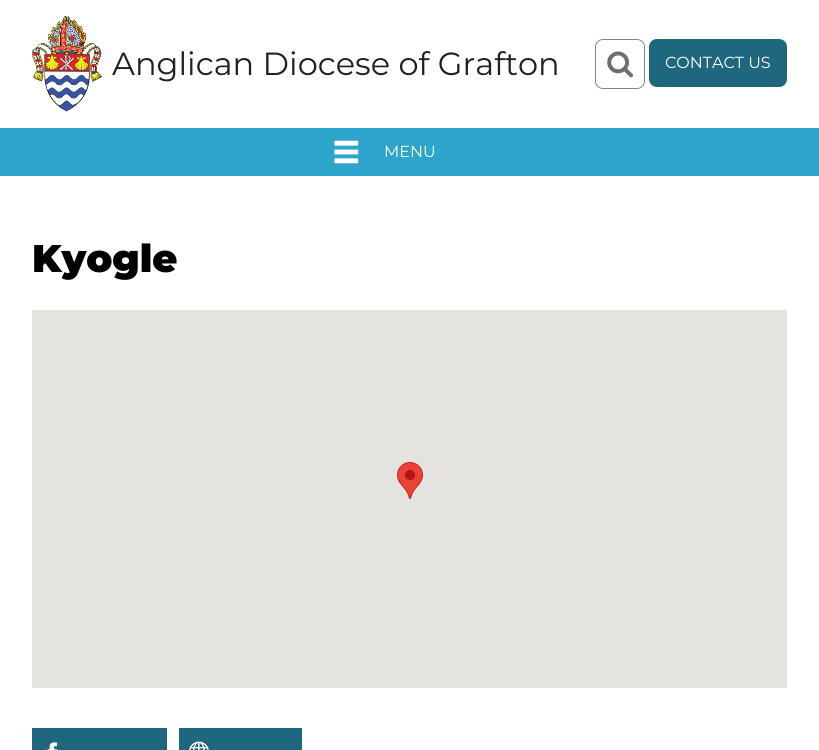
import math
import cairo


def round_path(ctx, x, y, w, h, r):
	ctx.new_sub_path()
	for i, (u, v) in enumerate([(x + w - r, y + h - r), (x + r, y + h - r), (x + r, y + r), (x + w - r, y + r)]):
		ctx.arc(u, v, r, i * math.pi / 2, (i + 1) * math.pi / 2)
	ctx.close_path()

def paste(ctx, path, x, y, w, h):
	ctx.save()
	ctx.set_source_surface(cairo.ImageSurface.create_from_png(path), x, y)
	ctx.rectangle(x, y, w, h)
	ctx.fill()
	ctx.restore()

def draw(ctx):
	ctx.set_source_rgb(1, 1, 1)
	ctx.paint()
	paste(ctx, 'media/1.png', 32, 16, 70, 96)
	ctx.select_font_face('Montserrat')
	ctx.set_font_size(32)
	ctx.set_source_rgb(0.137, 0.122, 0.125)
	ctx.move_to(112, 75)
	ctx.show_text('Anglican Diocese of Grafton')
	round_path(ctx, 595.5, 39.5, 49, 49, 7.5)
	ctx.set_source_rgb(0.502, 0.51, 0.522)
	ctx.set_line_width(1)
	ctx.stroke()
	paste(ctx, 'media/2.png', 607, 51, 26, 27)
	ctx.set_source_rgb(0.122, 0.404, 0.498)
	round_path(ctx, 649, 39, 138, 48, 8)
	ctx.fill()
	ctx.set_font_size(16)
	ctx.set_source_rgb(1, 1, 1)
	ctx.move_to(665, 68)
	ctx.show_text('CONTACT US')
	ctx.set_source_rgb(0.176, 0.643, 0.8)
	ctx.rectangle(0, 128, 819, 48)
	ctx.fill()
	paste(ctx, 'media/3.png', 334, 140, 25, 24)
	ctx.set_source_rgb(1, 1, 1)
	ctx.move_to(384, 157)
	ctx.show_text('MENU')
	ctx.select_font_face('Montserrat Black')
	ctx.set_font_size(38.5)
	ctx.set_source_rgb(0, 0, 0)
	ctx.move_to(32, 272)
	ctx.show_text('Kyogle')
	ctx.set_source_rgb(0.898, 0.89, 0.875)
	ctx.rectangle(32, 310, 755, 378)
	ctx.fill()
	paste(ctx, 'media/4.png', 397, 462, 26, 37)
	ctx.set_source_rgb(0.122, 0.404, 0.498)
	ctx.rectangle(32, 728, 135, 22)
	ctx.fill()
	paste(ctx, 'media/5.png', 47, 742, 11, 8)
	ctx.rectangle(179, 728, 123, 22)
	ctx.fill()
	paste(ctx, 'media/6.png', 189, 741, 20, 9)


surface = cairo.ImageSurface(cairo.FORMAT_RGB24, 819, 750)
ctx = cairo.Context(surface)
options = cairo.FontOptions()
options.set_hint_metrics(cairo.HINT_METRICS_OFF)
options.set_hint_style(cairo.HINT_STYLE_NONE)
ctx.set_font_options(options)
ctx.set_miter_limit(4)
draw(ctx)
surface.write_to_png('image.png')
